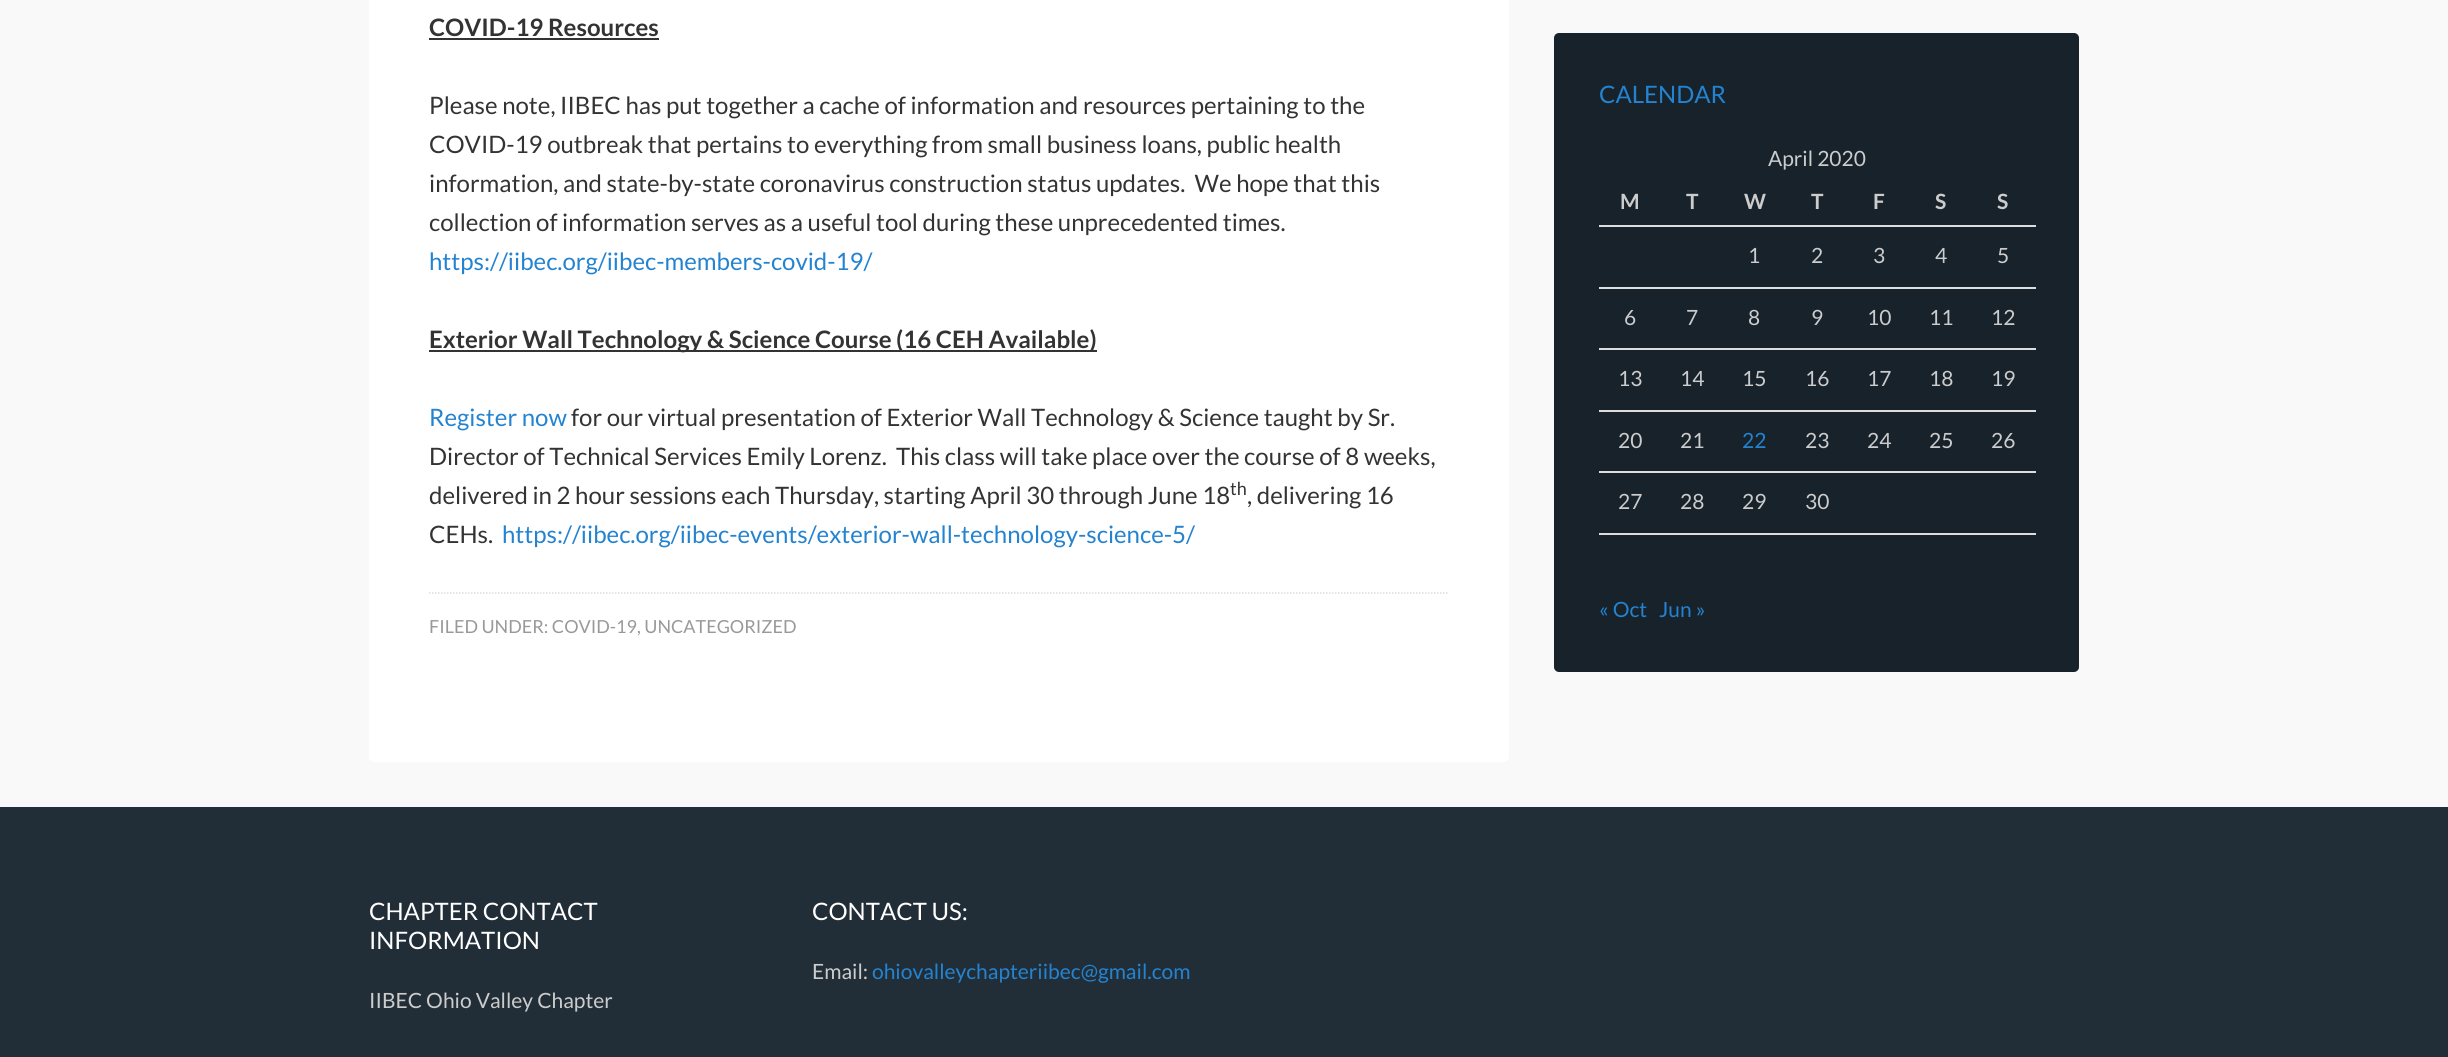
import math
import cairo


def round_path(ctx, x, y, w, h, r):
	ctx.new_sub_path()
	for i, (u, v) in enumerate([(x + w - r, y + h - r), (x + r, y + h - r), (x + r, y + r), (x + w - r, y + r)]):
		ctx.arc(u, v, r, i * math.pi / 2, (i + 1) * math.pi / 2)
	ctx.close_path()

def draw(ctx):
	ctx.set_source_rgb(0.976, 0.976, 0.976)
	ctx.paint()
	ctx.set_source_rgb(1, 1, 1)
	round_path(ctx, 369, -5, 1140, 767, 5)
	ctx.fill()
	ctx.select_font_face('Lato', cairo.FONT_SLANT_NORMAL, cairo.FONT_WEIGHT_BOLD)
	ctx.set_font_size(24)
	ctx.set_source_rgb(0.2, 0.2, 0.2)
	ctx.move_to(429, 36)
	ctx.show_text('COVID-19 Resources')
	ctx.rectangle(429, 38, 230, 2)
	ctx.fill()
	ctx.select_font_face('Lato')
	for x, y, s in [
		(429, 114, 'Please note, IIBEC has put together a cache of information and resources pertaining to the'),
		(429, 153, 'COVID-19 outbreak that pertains to everything from small business loans, public health'),
		(429, 192, 'information, and state-by-state coronavirus construction status updates.  We hope that this'),
		(429, 231, 'collection of information serves as a useful tool during these unprecedented times.'),
	]:
		ctx.move_to(x, y)
		ctx.show_text(s)
	ctx.set_source_rgb(0.141, 0.514, 0.816)
	ctx.move_to(429, 270)
	ctx.show_text('https://iibec.org/iibec-members-covid-19/')
	ctx.set_source_rgb(0.2, 0.2, 0.2)
	ctx.rectangle(429, 350, 668, 2)
	ctx.fill()
	ctx.select_font_face('Lato', cairo.FONT_SLANT_NORMAL, cairo.FONT_WEIGHT_BOLD)
	ctx.move_to(429, 348)
	ctx.show_text('Exterior Wall Technology & Science Course (16 CEH Available)')
	ctx.select_font_face('Lato')
	ctx.set_source_rgb(0.141, 0.514, 0.816)
	ctx.move_to(429, 426)
	ctx.show_text('Register now')
	ctx.set_source_rgb(0.2, 0.2, 0.2)
	for x, y, s in [
		(571, 426, 'for our virtual presentation of Exterior Wall Technology & Science taught by Sr.'),
		(429, 465, 'Director of Technical Services Emily Lorenz.  This class will take place over the course of 8 weeks,'),
		(429, 504, 'delivered in 2 hour sessions each Thursday, starting April 30 through June 18'),
	]:
		ctx.move_to(x, y)
		ctx.show_text(s)
	ctx.set_font_size(18)
	ctx.move_to(1230, 495)
	ctx.show_text('th')
	ctx.set_font_size(24)
	ctx.move_to(1247, 504)
	ctx.show_text(', delivering 16')
	ctx.move_to(429, 543)
	ctx.show_text('CEHs.')
	ctx.set_source_rgb(0.141, 0.514, 0.816)
	ctx.move_to(502, 543)
	ctx.show_text('https://iibec.org/iibec-events/exterior-wall-technology-science-5/')
	ctx.new_path()
	ctx.move_to(429, 593)
	ctx.line_to(1449, 593)
	ctx.set_source_rgb(0.867, 0.867, 0.867)
	ctx.set_line_width(1.5)
	ctx.set_dash([1.5, 1.5])
	ctx.stroke()
	ctx.set_font_size(18)
	ctx.set_source_rgb(0.6, 0.6, 0.6)
	ctx.move_to(429, 633)
	ctx.show_text('FILED UNDER: COVID-19, UNCATEGORIZED')
	ctx.set_source_rgb(0.09, 0.133, 0.169)
	round_path(ctx, 1554, 33, 525, 639, 5)
	ctx.fill()
	ctx.set_font_size(24)
	ctx.set_source_rgb(0.141, 0.514, 0.816)
	ctx.move_to(1599, 103)
	ctx.show_text('CALENDAR')
	ctx.set_font_size(21)
	ctx.set_source_rgb(0.8, 0.8, 0.8)
	ctx.move_to(1768, 166)
	ctx.show_text('April 2020')
	ctx.select_font_face('Lato', cairo.FONT_SLANT_NORMAL, cairo.FONT_WEIGHT_BOLD)
	for x, y, s in [
		(1620, 209, 'M'),
		(1686, 209, 'T'),
		(1744, 209, 'W'),
		(1811, 209, 'T'),
		(1873, 209, 'F'),
		(1935, 209, 'S'),
		(1997, 209, 'S'),
	]:
		ctx.move_to(x, y)
		ctx.show_text(s)
	ctx.set_source_rgb(0.867, 0.867, 0.867)
	ctx.rectangle(1599, 533, 437, 2)
	ctx.fill()
	ctx.select_font_face('Lato')
	ctx.set_source_rgb(0.8, 0.8, 0.8)
	for x, y, s in [
		(1748, 263, '1'),
		(1811, 263, '2'),
		(1873, 263, '3'),
		(1935, 263, '4'),
	]:
		ctx.move_to(x, y)
		ctx.show_text(s)
	ctx.set_source_rgb(0.867, 0.867, 0.867)
	ctx.rectangle(1599, 225, 437, 2)
	ctx.fill()
	ctx.set_source_rgb(0.8, 0.8, 0.8)
	for x, y, s in [
		(1997, 263, '5'),
		(1624, 325, '6'),
		(1686, 325, '7'),
		(1748, 325, '8'),
		(1811, 325, '9'),
		(1867, 325, '10'),
		(1929, 325, '11'),
	]:
		ctx.move_to(x, y)
		ctx.show_text(s)
	ctx.set_source_rgb(0.867, 0.867, 0.867)
	ctx.rectangle(1599, 287, 437, 2)
	ctx.fill()
	ctx.set_source_rgb(0.8, 0.8, 0.8)
	for x, y, s in [
		(1991, 325, '12'),
		(1618, 386, '13'),
		(1680, 386, '14'),
		(1742, 386, '15'),
		(1805, 386, '16'),
		(1867, 386, '17'),
		(1929, 386, '18'),
	]:
		ctx.move_to(x, y)
		ctx.show_text(s)
	ctx.set_source_rgb(0.867, 0.867, 0.867)
	ctx.rectangle(1599, 348, 437, 2)
	ctx.fill()
	ctx.set_source_rgb(0.8, 0.8, 0.8)
	for x, y, s in [
		(1991, 386, '19'),
		(1618, 448, '20'),
		(1680, 448, '21'),
	]:
		ctx.move_to(x, y)
		ctx.show_text(s)
	ctx.set_source_rgb(0.141, 0.514, 0.816)
	ctx.move_to(1742, 448)
	ctx.show_text('22')
	ctx.set_source_rgb(0.8, 0.8, 0.8)
	for x, y, s in [
		(1805, 448, '23'),
		(1867, 448, '24'),
		(1929, 448, '25'),
	]:
		ctx.move_to(x, y)
		ctx.show_text(s)
	ctx.set_source_rgb(0.867, 0.867, 0.867)
	ctx.rectangle(1599, 410, 437, 2)
	ctx.fill()
	ctx.set_source_rgb(0.8, 0.8, 0.8)
	ctx.move_to(1991, 448)
	ctx.show_text('26')
	ctx.set_source_rgb(0.867, 0.867, 0.867)
	ctx.rectangle(1599, 471, 437, 2)
	ctx.fill()
	ctx.set_source_rgb(0.8, 0.8, 0.8)
	for x, y, s in [
		(1618, 509, '27'),
		(1680, 509, '28'),
		(1742, 509, '29'),
		(1805, 509, '30'),
	]:
		ctx.move_to(x, y)
		ctx.show_text(s)
	ctx.set_source_rgb(0.141, 0.514, 0.816)
	ctx.move_to(1599, 617)
	ctx.show_text('« Oct')
	ctx.move_to(1659, 617)
	ctx.show_text('Jun »')
	ctx.set_source_rgb(0.133, 0.18, 0.216)
	ctx.rectangle(0, 807, 2448, 250)
	ctx.fill()
	ctx.set_font_size(24)
	ctx.set_source_rgb(1, 1, 1)
	ctx.move_to(369, 920)
	ctx.show_text('CHAPTER CONTACT')
	ctx.move_to(369, 949)
	ctx.show_text('INFORMATION')
	ctx.set_font_size(21)
	ctx.set_source_rgb(0.8, 0.8, 0.8)
	ctx.move_to(369, 1008)
	ctx.show_text('IIBEC Ohio Valley Chapter')
	ctx.set_font_size(24)
	ctx.set_source_rgb(1, 1, 1)
	ctx.move_to(812, 920)
	ctx.show_text('CONTACT US:')
	ctx.set_font_size(21)
	ctx.set_source_rgb(0.8, 0.8, 0.8)
	ctx.move_to(812, 979)
	ctx.show_text('Email:')
	ctx.set_source_rgb(0.141, 0.514, 0.816)
	ctx.move_to(872, 979)
	ctx.show_text('ohiovalleychapteriibec@gmail.com')


surface = cairo.ImageSurface(cairo.FORMAT_RGB24, 2448, 1057)
ctx = cairo.Context(surface)
options = cairo.FontOptions()
options.set_hint_metrics(cairo.HINT_METRICS_OFF)
options.set_hint_style(cairo.HINT_STYLE_NONE)
ctx.set_font_options(options)
ctx.set_miter_limit(4)
draw(ctx)
surface.write_to_png('image.png')
